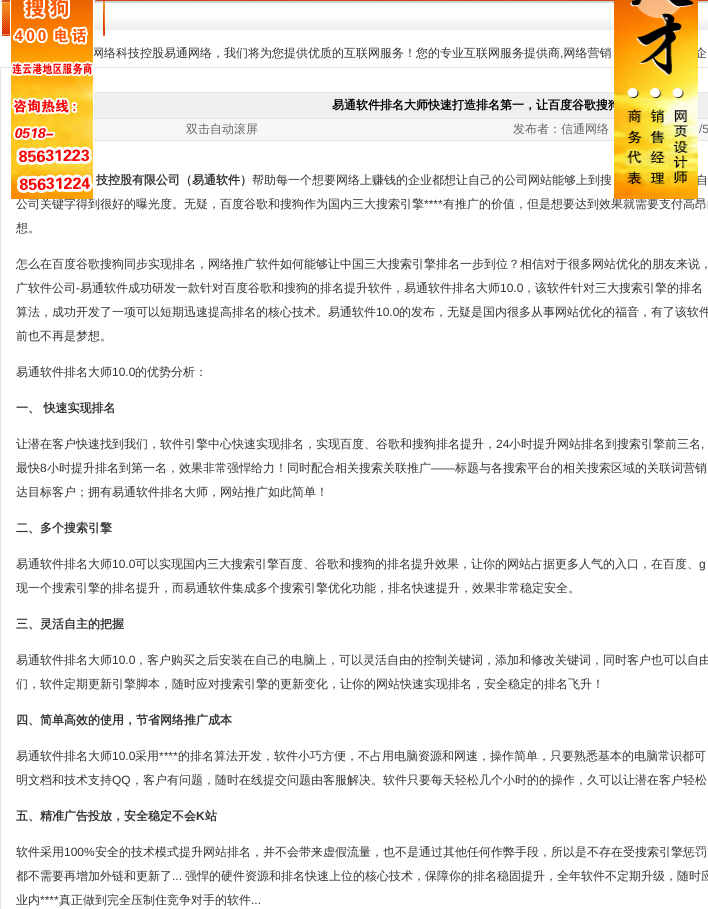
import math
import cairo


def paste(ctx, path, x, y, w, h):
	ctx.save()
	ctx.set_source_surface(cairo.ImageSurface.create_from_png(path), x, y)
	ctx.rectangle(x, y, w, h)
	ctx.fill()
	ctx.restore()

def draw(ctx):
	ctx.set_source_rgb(1, 1, 1)
	ctx.paint()
	paste(ctx, 'media/3.png', 0, 0, 708, 30)
	ctx.select_font_face('WenQuanYi Zen Hei Medium')
	ctx.set_font_size(12)
	ctx.set_source_rgb(0.2, 0.2, 0.2)
	ctx.move_to(92, 57)
	ctx.show_text('网络科技控股易通网络，我们将为您提供优质的互联网服务！您的专业互联网服务提供商 网络营销')
	ctx.set_source_rgb(0.894, 0.894, 0.894)
	ctx.rectangle(0, 67, 708, 842)
	ctx.fill()
	ctx.set_source_rgb(1, 1, 1)
	ctx.rectangle(1, 68, 707, 841)
	ctx.fill()
	ctx.set_source_rgb(0.2, 0.2, 0.2)
	ctx.move_to(16, 208)
	ctx.show_text('公司关键字得到很好的曝光度。无疑，百度谷歌和搜狗作为国内三大搜索引擎')
	paste(ctx, 'media/1.png', 10, 0, 84, 199)
	ctx.move_to(695, 57)
	ctx.show_text('企')
	ctx.set_source_rgb(0.894, 0.894, 0.894)
	ctx.rectangle(94, 92, 614, 49)
	ctx.fill()
	ctx.set_source_rgb(0.937, 0.937, 0.937)
	ctx.rectangle(94, 93, 614, 25)
	ctx.fill()
	ctx.select_font_face('WenQuanYi Zen Hei', cairo.FONT_SLANT_NORMAL, cairo.FONT_WEIGHT_BOLD)
	ctx.set_source_rgb(0, 0, 0)
	ctx.move_to(332, 109)
	ctx.show_text('易通软件排名大师快速打造排名第一，让百度谷歌搜狗')
	ctx.set_source_rgb(0.965, 0.965, 0.965)
	ctx.rectangle(94, 119, 614, 21)
	ctx.fill()
	ctx.select_font_face('WenQuanYi Zen Hei Medium')
	ctx.set_source_rgb(0.2, 0.2, 0.2)
	ctx.move_to(696, 184)
	ctx.show_text('自')
	ctx.select_font_face('Liberation Sans')
	ctx.move_to(424, 208)
	ctx.show_text('****')
	ctx.select_font_face('WenQuanYi Zen Hei Medium')
	ctx.move_to(443, 208)
	ctx.show_text('有推广的价值，但是想要达到效果就需要支付高昂的')
	paste(ctx, 'media/2.png', 614, 0, 84, 199)
	paste(ctx, 'media/4.png', 94, 0, 2, 1)
	ctx.set_source_rgb(0.808, 0.271, 0.067)
	ctx.rectangle(127, 0, 3, 1)
	ctx.fill()
	paste(ctx, 'media/5.png', 135, 0, 70, 1)
	paste(ctx, 'media/6.png', 244, 0, 68, 1)
	ctx.set_source_rgb(0.804, 0.267, 0.063)
	ctx.rectangle(343, 0, 1, 1)
	ctx.fill()
	paste(ctx, 'media/7.png', 353, 0, 67, 1)
	paste(ctx, 'media/8.png', 451, 0, 7, 1)
	paste(ctx, 'media/9.png', 460, 0, 69, 1)
	paste(ctx, 'media/10.png', 566, 0, 48, 1)
	paste(ctx, 'media/11.png', 698, 0, 8, 1)
	paste(ctx, 'media/12.png', 2, 1, 8, 35)
	paste(ctx, 'media/13.png', 103, 1, 2, 35)
	ctx.select_font_face('Liberation Sans')
	ctx.set_source_rgb(0.2, 0.2, 0.2)
	ctx.move_to(560, 57)
	ctx.show_text(',')
	ctx.select_font_face('WenQuanYi Zen Hei Medium')
	ctx.set_source_rgb(0.4, 0.4, 0.4)
	ctx.move_to(186, 133)
	ctx.show_text('双击自动滚屏')
	ctx.move_to(513, 133)
	ctx.show_text('发布者：信通网络')
	ctx.select_font_face('Liberation Sans')
	ctx.move_to(699, 133)
	ctx.show_text('/5')
	ctx.select_font_face('WenQuanYi Zen Hei', cairo.FONT_SLANT_NORMAL, cairo.FONT_WEIGHT_BOLD)
	ctx.set_source_rgb(0.2, 0.2, 0.2)
	ctx.move_to(96, 184)
	ctx.show_text('技控股有限公司（易通软件）')
	ctx.select_font_face('WenQuanYi Zen Hei Medium')
	for x, y, s in [
		(252, 184, '帮助每一个想要网络上赚钱的企业都想让自己的公司网站能够上到搜'),
		(16, 232, '想。'),
		(16, 268, '怎么在百度谷歌搜狗同步实现排名，网络推广软件如何能够让中国三大搜索引擎排名一步到位？相信对于很多网站优化的朋友来说，'),
		(16, 292, '广软件公司'),
	]:
		ctx.move_to(x, y)
		ctx.show_text(s)
	ctx.select_font_face('Liberation Sans')
	ctx.move_to(76, 292)
	ctx.show_text('-')
	ctx.select_font_face('WenQuanYi Zen Hei Medium')
	ctx.move_to(80, 292)
	ctx.show_text('易通软件成功研发一款针对百度谷歌和搜狗的排名提升软件，易通软件排名大师')
	ctx.select_font_face('Liberation Sans')
	ctx.move_to(500, 292)
	ctx.show_text('10.0')
	ctx.select_font_face('WenQuanYi Zen Hei Medium')
	ctx.move_to(523, 292)
	ctx.show_text('，该软件针对三大搜索引擎的排名')
	ctx.move_to(16, 316)
	ctx.show_text('算法，成功开发了一项可以短期迅速提高排名的核心技术。易通软件')
	ctx.select_font_face('Liberation Sans')
	ctx.move_to(376, 316)
	ctx.show_text('10.0')
	ctx.select_font_face('WenQuanYi Zen Hei Medium')
	for x, y, s in [
		(399, 316, '的发布，无疑是国内很多从事网站优化的福音，有了该软件'),
		(16, 340, '前也不再是梦想。'),
		(16, 376, '易通软件排名大师'),
	]:
		ctx.move_to(x, y)
		ctx.show_text(s)
	ctx.select_font_face('Liberation Sans')
	ctx.move_to(112, 376)
	ctx.show_text('10.0')
	ctx.select_font_face('WenQuanYi Zen Hei Medium')
	ctx.move_to(135, 376)
	ctx.show_text('的优势分析：')
	ctx.select_font_face('WenQuanYi Zen Hei', cairo.FONT_SLANT_NORMAL, cairo.FONT_WEIGHT_BOLD)
	ctx.move_to(16, 412)
	ctx.show_text('一、 快速实现排名')
	ctx.select_font_face('WenQuanYi Zen Hei Medium')
	ctx.move_to(16, 448)
	ctx.show_text('让潜在客户快速找到我们，软件引擎中心快速实现排名，实现百度、谷歌和搜狗排名提升，')
	ctx.select_font_face('Liberation Sans')
	ctx.move_to(496, 448)
	ctx.show_text('24')
	ctx.select_font_face('WenQuanYi Zen Hei Medium')
	ctx.move_to(509, 448)
	ctx.show_text('小时提升网站排名到搜索引擎前三名')
	ctx.select_font_face('Liberation Sans')
	ctx.move_to(701, 448)
	ctx.show_text(',')
	ctx.select_font_face('WenQuanYi Zen Hei Medium')
	ctx.move_to(16, 472)
	ctx.show_text('最快')
	ctx.select_font_face('Liberation Sans')
	ctx.move_to(40, 472)
	ctx.show_text('8')
	ctx.select_font_face('WenQuanYi Zen Hei Medium')
	ctx.move_to(47, 472)
	ctx.show_text('小时提升排名到第一名，效果非常强悍给力！同时配合相关搜索关联推广')
	ctx.select_font_face('Liberation Sans')
	ctx.move_to(431, 472)
	ctx.show_text('——')
	ctx.select_font_face('WenQuanYi Zen Hei Medium')
	ctx.move_to(455, 472)
	ctx.show_text('标题与各搜索平台的相关搜索区域的关联词营销')
	ctx.move_to(16, 496)
	ctx.show_text('达目标客户；拥有易通软件排名大师，网站推广如此简单！')
	ctx.select_font_face('WenQuanYi Zen Hei', cairo.FONT_SLANT_NORMAL, cairo.FONT_WEIGHT_BOLD)
	ctx.move_to(16, 532)
	ctx.show_text('二、多个搜索引擎')
	ctx.select_font_face('WenQuanYi Zen Hei Medium')
	ctx.move_to(16, 568)
	ctx.show_text('易通软件排名大师')
	ctx.select_font_face('Liberation Sans')
	ctx.move_to(112, 568)
	ctx.show_text('10.0')
	ctx.select_font_face('WenQuanYi Zen Hei Medium')
	ctx.move_to(135, 568)
	ctx.show_text('可以实现国内三大搜索引擎百度、谷歌和搜狗的排名提升效果，让你的网站占据更多人气的入口，在百度、')
	ctx.select_font_face('Liberation Sans')
	ctx.move_to(699, 568)
	ctx.show_text('g')
	ctx.select_font_face('WenQuanYi Zen Hei Medium')
	ctx.move_to(16, 592)
	ctx.show_text('现一个搜索引擎的排名提升，而易通软件集成多个搜索引擎优化功能，排名快速提升，效果非常稳定安全。')
	ctx.select_font_face('WenQuanYi Zen Hei', cairo.FONT_SLANT_NORMAL, cairo.FONT_WEIGHT_BOLD)
	ctx.move_to(16, 628)
	ctx.show_text('三、灵活自主的把握')
	ctx.select_font_face('WenQuanYi Zen Hei Medium')
	ctx.move_to(16, 664)
	ctx.show_text('易通软件排名大师')
	ctx.select_font_face('Liberation Sans')
	ctx.move_to(112, 664)
	ctx.show_text('10.0')
	ctx.select_font_face('WenQuanYi Zen Hei Medium')
	ctx.move_to(135, 664)
	ctx.show_text('，客户购买之后安装在自己的电脑上，可以灵活自由的控制关键词，添加和修改关键词，同时客户也可以自由')
	ctx.move_to(16, 688)
	ctx.show_text('们，软件定期更新引擎脚本，随时应对搜索引擎的更新变化，让你的网站快速实现排名，安全稳定的排名飞升！')
	ctx.select_font_face('WenQuanYi Zen Hei', cairo.FONT_SLANT_NORMAL, cairo.FONT_WEIGHT_BOLD)
	ctx.move_to(16, 724)
	ctx.show_text('四、简单高效的使用，节省网络推广成本')
	ctx.select_font_face('WenQuanYi Zen Hei Medium')
	ctx.move_to(16, 760)
	ctx.show_text('易通软件排名大师')
	ctx.select_font_face('Liberation Sans')
	ctx.move_to(112, 760)
	ctx.show_text('10.0')
	ctx.select_font_face('WenQuanYi Zen Hei Medium')
	ctx.move_to(135, 760)
	ctx.show_text('采用')
	ctx.select_font_face('Liberation Sans')
	ctx.move_to(159, 760)
	ctx.show_text('****')
	ctx.select_font_face('WenQuanYi Zen Hei Medium')
	ctx.move_to(178, 760)
	ctx.show_text('的排名算法开发，软件小巧方便，不占用电脑资源和网速，操作简单，只要熟悉基本的电脑常识都可')
	ctx.move_to(16, 784)
	ctx.show_text('明文档和技术支持')
	ctx.select_font_face('Liberation Sans')
	ctx.move_to(112, 784)
	ctx.show_text('QQ')
	ctx.select_font_face('WenQuanYi Zen Hei Medium')
	ctx.move_to(131, 784)
	ctx.show_text('，客户有问题，随时在线提交问题由客服解决。软件只要每天轻松几个小时的的操作，久可以让潜在客户轻松')
	ctx.select_font_face('WenQuanYi Zen Hei', cairo.FONT_SLANT_NORMAL, cairo.FONT_WEIGHT_BOLD)
	ctx.move_to(16, 820)
	ctx.show_text('五、精准广告投放，安全稳定不会')
	ctx.select_font_face('Liberation Sans', cairo.FONT_SLANT_NORMAL, cairo.FONT_WEIGHT_BOLD)
	ctx.move_to(196, 820)
	ctx.show_text('K')
	ctx.select_font_face('WenQuanYi Zen Hei', cairo.FONT_SLANT_NORMAL, cairo.FONT_WEIGHT_BOLD)
	ctx.move_to(205, 820)
	ctx.show_text('站')
	ctx.select_font_face('WenQuanYi Zen Hei Medium')
	ctx.move_to(16, 856)
	ctx.show_text('软件采用')
	ctx.select_font_face('Liberation Sans')
	ctx.move_to(64, 856)
	ctx.show_text('100%')
	ctx.select_font_face('WenQuanYi Zen Hei Medium')
	ctx.move_to(95, 856)
	ctx.show_text('安全的技术模式提升网站排名，并不会带来虚假流量，也不是通过其他任何作弊手段，所以是不存在受搜索引擎惩罚')
	ctx.move_to(16, 880)
	ctx.show_text('都不需要再增加外链和更新了')
	ctx.select_font_face('Liberation Sans')
	ctx.move_to(172, 880)
	ctx.show_text('...')
	ctx.select_font_face('WenQuanYi Zen Hei Medium')
	ctx.move_to(185, 880)
	ctx.show_text('强悍的硬件资源和排名快速上位的核心技术，保障你的排名稳固提升，全年软件不定期升级，随时应')
	ctx.move_to(16, 904)
	ctx.show_text('业内')
	ctx.select_font_face('Liberation Sans')
	ctx.move_to(40, 904)
	ctx.show_text('****')
	ctx.select_font_face('WenQuanYi Zen Hei Medium')
	ctx.move_to(59, 904)
	ctx.show_text('真正做到完全压制住竞争对手的软件')
	ctx.select_font_face('Liberation Sans')
	ctx.move_to(251, 904)
	ctx.show_text('...')


surface = cairo.ImageSurface(cairo.FORMAT_RGB24, 708, 909)
ctx = cairo.Context(surface)
options = cairo.FontOptions()
options.set_hint_metrics(cairo.HINT_METRICS_OFF)
options.set_hint_style(cairo.HINT_STYLE_NONE)
ctx.set_font_options(options)
ctx.set_miter_limit(4)
draw(ctx)
surface.write_to_png('image.png')
